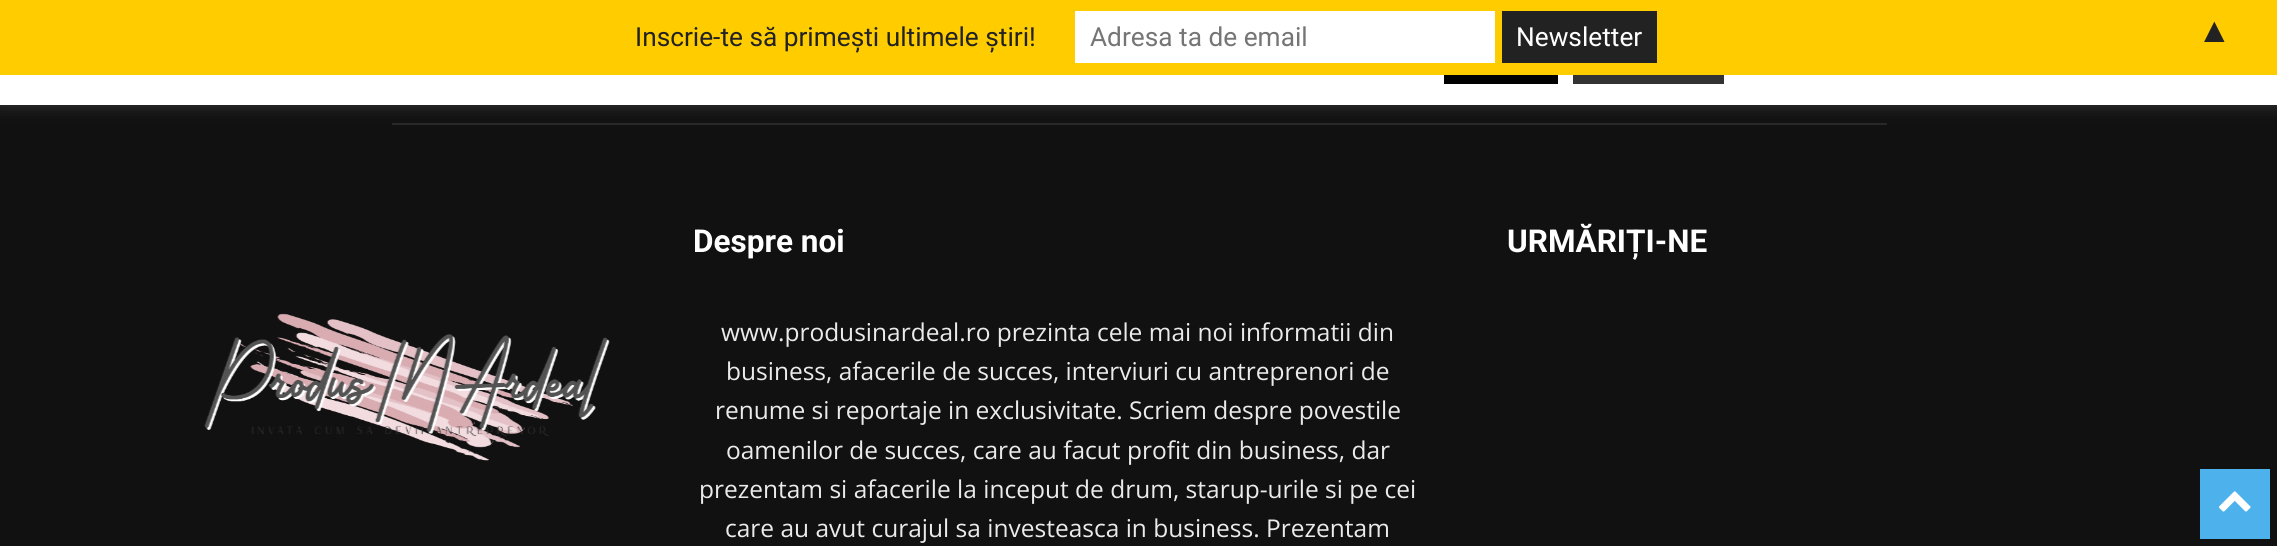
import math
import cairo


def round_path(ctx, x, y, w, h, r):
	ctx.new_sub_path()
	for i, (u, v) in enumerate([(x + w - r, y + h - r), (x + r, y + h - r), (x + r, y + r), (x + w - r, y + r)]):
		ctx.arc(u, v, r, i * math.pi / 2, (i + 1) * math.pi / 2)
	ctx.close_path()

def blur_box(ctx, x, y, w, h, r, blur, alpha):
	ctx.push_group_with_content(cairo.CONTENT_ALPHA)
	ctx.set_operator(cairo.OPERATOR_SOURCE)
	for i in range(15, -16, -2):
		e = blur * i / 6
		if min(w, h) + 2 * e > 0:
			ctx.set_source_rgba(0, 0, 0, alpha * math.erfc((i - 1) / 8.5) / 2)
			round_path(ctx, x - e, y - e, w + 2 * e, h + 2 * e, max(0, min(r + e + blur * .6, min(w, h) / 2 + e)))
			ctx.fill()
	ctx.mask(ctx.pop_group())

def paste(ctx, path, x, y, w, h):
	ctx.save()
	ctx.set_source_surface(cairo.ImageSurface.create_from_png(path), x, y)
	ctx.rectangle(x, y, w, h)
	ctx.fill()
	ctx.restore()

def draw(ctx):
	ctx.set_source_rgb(0.067, 0.067, 0.067)
	ctx.paint()
	ctx.set_source_rgb(0.161, 0.161, 0.161)
	ctx.rectangle(392, 123, 1495, 2)
	ctx.fill()
	ctx.set_source_rgb(0.675, 0.671, 0.671)
	blur_box(ctx, 0, -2, 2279, 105, 0, 9, 0.3)
	ctx.set_source_rgb(1, 1, 1)
	ctx.rectangle(0, 75, 2277, 30)
	ctx.fill()
	ctx.set_source_rgb(0, 0, 0)
	ctx.rectangle(1444, 75, 114, 9)
	ctx.fill()
	ctx.set_source_rgb(0.2, 0.2, 0.2)
	ctx.rectangle(1573, 75, 151, 9)
	ctx.fill()
	ctx.set_source_rgb(1, 0.8, 0)
	ctx.rectangle(0, 0, 2277, 75)
	ctx.fill()
	ctx.select_font_face('Roboto')
	ctx.set_font_size(26.25)
	ctx.set_source_rgb(0.133, 0.133, 0.133)
	ctx.move_to(635, 46)
	ctx.show_text('Inscrie-te să primești ultimele știri!')
	ctx.set_source_rgb(1, 1, 1)
	ctx.rectangle(1075, 11, 420, 52)
	ctx.fill()
	ctx.set_source_rgb(0.459, 0.459, 0.459)
	ctx.move_to(1090, 46)
	ctx.show_text('Adresa ta de email')
	ctx.set_source_rgb(0.133, 0.133, 0.133)
	ctx.rectangle(1502, 11, 155, 52)
	ctx.fill()
	ctx.set_source_rgb(1, 1, 1)
	ctx.move_to(1516, 46)
	ctx.show_text('Newsletter')
	ctx.select_font_face('Liberation Sans')
	ctx.set_font_size(35)
	ctx.set_source_rgb(0.133, 0.133, 0.133)
	ctx.move_to(2197, 42)
	ctx.show_text('▲')
	paste(ctx, 'media/1.png', 204, 313, 406, 148)
	ctx.select_font_face('Roboto', cairo.FONT_SLANT_NORMAL, cairo.FONT_WEIGHT_BOLD)
	ctx.set_font_size(31.5)
	ctx.set_source_rgb(1, 1, 1)
	ctx.move_to(693, 252)
	ctx.show_text('Despre noi')
	ctx.select_font_face('Open Sans')
	ctx.set_font_size(24.5)
	ctx.set_source_rgb(0.918, 0.918, 0.918)
	for x, y, s in [
		(721, 341, 'www.produsinardeal.ro prezinta cele mai noi informatii din'),
		(726, 380, 'business, afacerile de succes, interviuri cu antreprenori de'),
		(715, 419, 'renume si reportaje in exclusivitate. Scriem despre povestile'),
		(726, 459, 'oamenilor de succes, care au facut profit din business, dar'),
		(699, 498, 'prezentam si afacerile la inceput de drum, starup-urile si pe cei'),
		(725, 537, 'care au avut curajul sa investeasca in business. Prezentam'),
	]:
		ctx.move_to(x, y)
		ctx.show_text(s)
	ctx.select_font_face('Roboto', cairo.FONT_SLANT_NORMAL, cairo.FONT_WEIGHT_BOLD)
	ctx.set_font_size(31.5)
	ctx.set_source_rgb(1, 1, 1)
	ctx.move_to(1507, 252)
	ctx.show_text('URMĂRIȚI-NE')
	ctx.set_source_rgb(0.302, 0.698, 0.925)
	ctx.rectangle(2200, 469, 70, 70)
	ctx.fill()
	paste(ctx, 'media/2.png', 2219, 491, 32, 21)


surface = cairo.ImageSurface(cairo.FORMAT_RGB24, 2277, 546)
ctx = cairo.Context(surface)
options = cairo.FontOptions()
options.set_hint_metrics(cairo.HINT_METRICS_OFF)
options.set_hint_style(cairo.HINT_STYLE_NONE)
ctx.set_font_options(options)
ctx.set_miter_limit(4)
draw(ctx)
surface.write_to_png('image.png')
